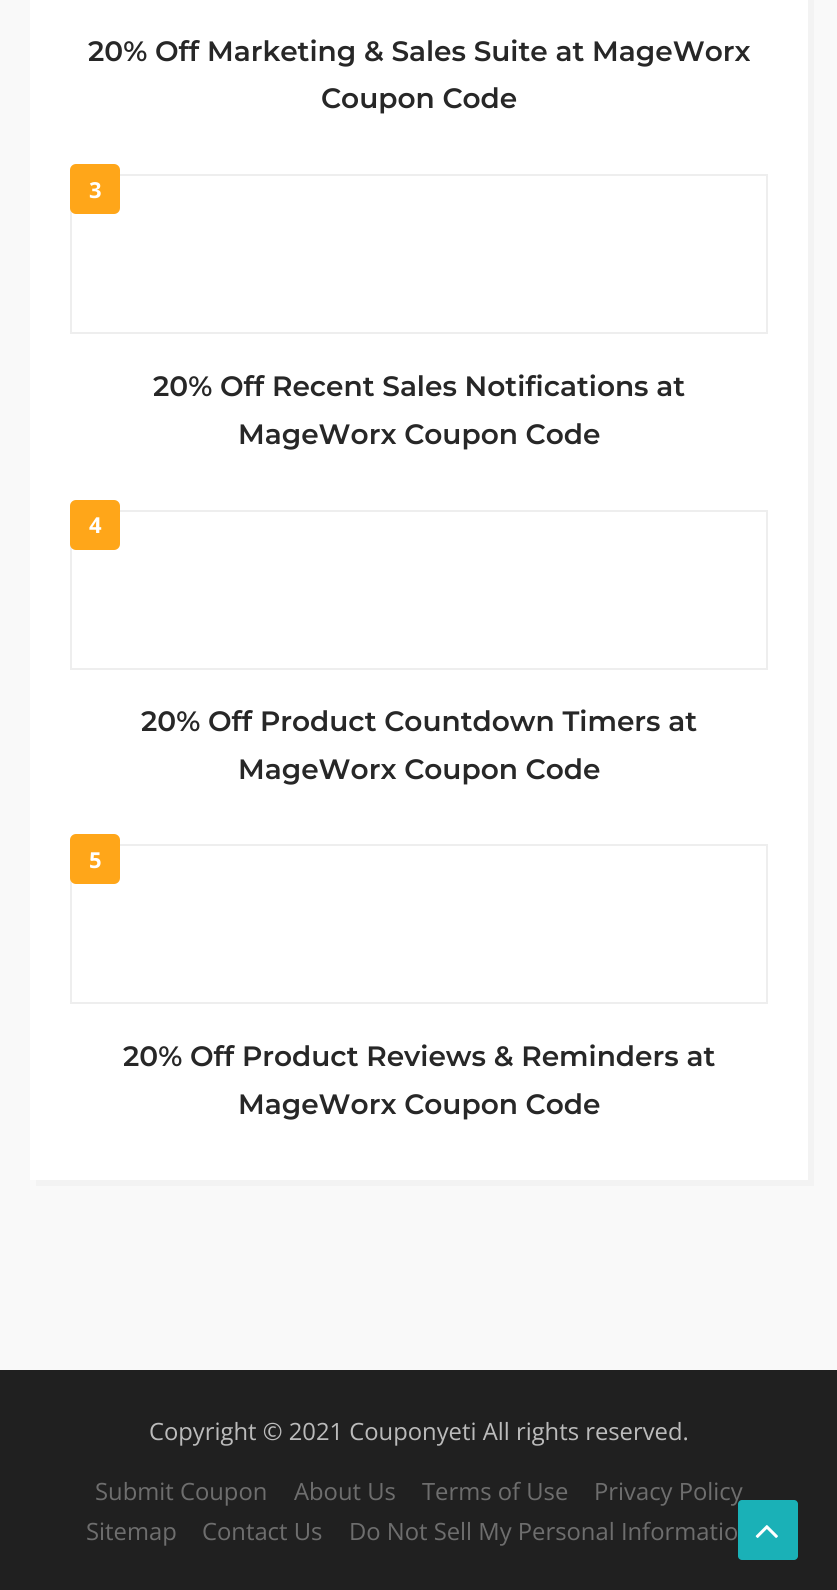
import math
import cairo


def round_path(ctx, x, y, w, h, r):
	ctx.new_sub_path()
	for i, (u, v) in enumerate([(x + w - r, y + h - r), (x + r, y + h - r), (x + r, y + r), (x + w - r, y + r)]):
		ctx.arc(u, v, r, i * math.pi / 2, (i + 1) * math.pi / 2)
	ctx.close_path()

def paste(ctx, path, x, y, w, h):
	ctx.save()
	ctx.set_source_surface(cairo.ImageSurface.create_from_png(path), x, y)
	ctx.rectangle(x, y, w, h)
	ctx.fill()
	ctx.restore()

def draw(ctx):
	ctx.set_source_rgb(0.973, 0.973, 0.973)
	ctx.paint()
	ctx.set_source_rgb(0.953, 0.953, 0.953)
	ctx.new_path()
	ctx.move_to(36, 1180)
	ctx.line_to(36, 1186)
	ctx.line_to(814, 1186)
	ctx.line_to(814, -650)
	ctx.line_to(808, -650)
	ctx.line_to(808, 1180)
	ctx.close_path()
	ctx.fill()
	ctx.set_source_rgb(1, 1, 1)
	ctx.rectangle(30, 0, 778, 1180)
	ctx.fill()
	ctx.select_font_face('Montserrat Thin')
	ctx.set_font_size(28)
	ctx.set_source_rgb(0.153, 0.153, 0.153)
	ctx.move_to(88, 61)
	ctx.show_text('20% Off Marketing & Sales Suite at MageWorx')
	ctx.move_to(321, 108)
	ctx.show_text('Coupon Code')
	ctx.rectangle(71, 175, 696, 158)
	ctx.set_source_rgb(0.933, 0.933, 0.933)
	ctx.stroke()
	ctx.set_source_rgb(1, 0.651, 0.098)
	round_path(ctx, 70, 164, 50, 50, 6)
	ctx.fill()
	ctx.select_font_face('Open Sans', cairo.FONT_SLANT_NORMAL, cairo.FONT_WEIGHT_BOLD)
	ctx.set_font_size(22)
	ctx.set_source_rgb(1, 1, 1)
	ctx.move_to(89, 198)
	ctx.show_text('3')
	ctx.select_font_face('Montserrat Thin')
	ctx.set_font_size(28)
	ctx.set_source_rgb(0.153, 0.153, 0.153)
	ctx.move_to(153, 396)
	ctx.show_text('20% Off Recent Sales Notifications at')
	ctx.move_to(238, 444)
	ctx.show_text('MageWorx Coupon Code')
	ctx.rectangle(71, 511, 696, 158)
	ctx.set_source_rgb(0.933, 0.933, 0.933)
	ctx.stroke()
	ctx.set_source_rgb(1, 0.651, 0.098)
	round_path(ctx, 70, 500, 50, 50, 6)
	ctx.fill()
	ctx.select_font_face('Open Sans', cairo.FONT_SLANT_NORMAL, cairo.FONT_WEIGHT_BOLD)
	ctx.set_font_size(22)
	ctx.set_source_rgb(1, 1, 1)
	ctx.move_to(89, 533)
	ctx.show_text('4')
	ctx.select_font_face('Montserrat Thin')
	ctx.set_font_size(28)
	ctx.set_source_rgb(0.153, 0.153, 0.153)
	ctx.move_to(141, 731)
	ctx.show_text('20% Off Product Countdown Timers at')
	ctx.move_to(238, 779)
	ctx.show_text('MageWorx Coupon Code')
	ctx.rectangle(71, 845, 696, 158)
	ctx.set_source_rgb(0.933, 0.933, 0.933)
	ctx.stroke()
	ctx.set_source_rgb(1, 0.651, 0.098)
	round_path(ctx, 70, 834, 50, 50, 6)
	ctx.fill()
	ctx.select_font_face('Open Sans', cairo.FONT_SLANT_NORMAL, cairo.FONT_WEIGHT_BOLD)
	ctx.set_font_size(22)
	ctx.set_source_rgb(1, 1, 1)
	ctx.move_to(89, 868)
	ctx.show_text('5')
	ctx.select_font_face('Montserrat Thin')
	ctx.set_font_size(28)
	ctx.set_source_rgb(0.153, 0.153, 0.153)
	ctx.move_to(123, 1066)
	ctx.show_text('20% Off Product Reviews & Reminders at')
	ctx.move_to(238, 1114)
	ctx.show_text('MageWorx Coupon Code')
	ctx.set_source_rgb(0.125, 0.125, 0.125)
	ctx.rectangle(0, 1370, 837, 220)
	ctx.fill()
	ctx.select_font_face('Open Sans')
	ctx.set_font_size(23.8)
	ctx.set_source_rgb(0.733, 0.733, 0.733)
	ctx.move_to(149, 1440)
	ctx.show_text('Copyright © 2021 Couponyeti All rights reserved.')
	ctx.set_source_rgb(0.431, 0.431, 0.431)
	for x, y, s in [
		(95, 1500, 'Submit Coupon'),
		(294, 1500, 'About Us'),
		(422, 1500, 'Terms of Use'),
		(594, 1500, 'Privacy Policy'),
		(86, 1540, 'Sitemap'),
		(202, 1540, 'Contact Us'),
		(349, 1540, 'Do Not Sell My Personal Informatio'),
	]:
		ctx.move_to(x, y)
		ctx.show_text(s)
	ctx.set_source_rgb(0.102, 0.694, 0.718)
	round_path(ctx, 738, 1500, 60, 60, 4)
	ctx.fill()
	paste(ctx, 'media/1.png', 755, 1525, 23, 13)


surface = cairo.ImageSurface(cairo.FORMAT_RGB24, 837, 1590)
ctx = cairo.Context(surface)
options = cairo.FontOptions()
options.set_hint_metrics(cairo.HINT_METRICS_OFF)
options.set_hint_style(cairo.HINT_STYLE_NONE)
ctx.set_font_options(options)
ctx.set_miter_limit(4)
draw(ctx)
surface.write_to_png('image.png')
